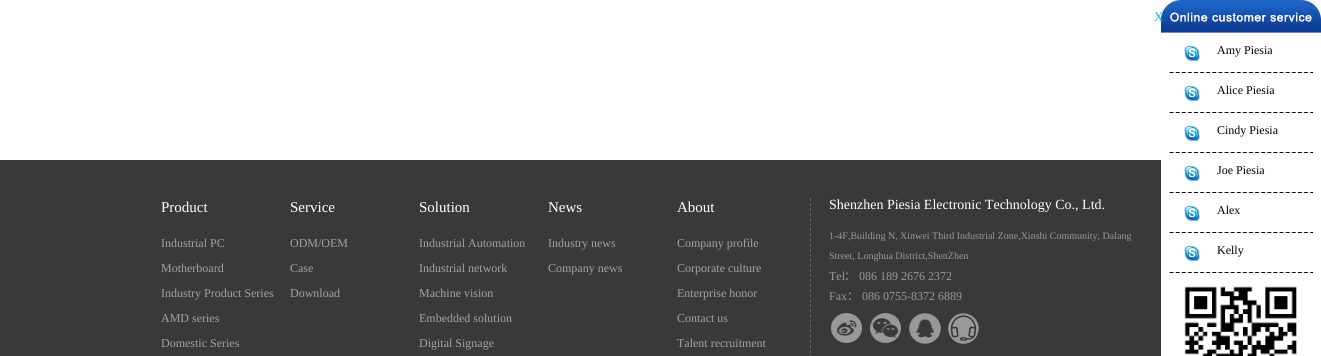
import math
import cairo


def paste(ctx, path, x, y, w, h):
	ctx.save()
	ctx.set_source_surface(cairo.ImageSurface.create_from_png(path), x, y)
	ctx.rectangle(x, y, w, h)
	ctx.fill()
	ctx.restore()

def draw(ctx):
	ctx.set_source_rgb(1, 1, 1)
	ctx.paint()
	paste(ctx, 'media/1.png', 1161, 0, 160, 33)
	ctx.select_font_face('Liberation Serif')
	ctx.set_font_size(13)
	ctx.set_source_rgb(0.055, 0.69, 0.988)
	ctx.move_to(1154, 21)
	ctx.show_text('X')
	paste(ctx, 'media/2.png', 1169, 46, 144, 27)
	ctx.set_font_size(12)
	ctx.set_source_rgb(0, 0, 0)
	ctx.move_to(1217, 54)
	ctx.show_text('Amy Piesia')
	paste(ctx, 'media/2.png', 1169, 86, 144, 27)
	ctx.move_to(1217, 94)
	ctx.show_text('Alice Piesia')
	paste(ctx, 'media/2.png', 1169, 126, 144, 27)
	ctx.move_to(1217, 134)
	ctx.show_text('Cindy Piesia')
	paste(ctx, 'media/2.png', 1169, 166, 144, 27)
	ctx.move_to(1217, 174)
	ctx.show_text('Joe Piesia')
	paste(ctx, 'media/2.png', 1169, 206, 144, 27)
	ctx.move_to(1217, 214)
	ctx.show_text('Alex')
	paste(ctx, 'media/2.png', 1169, 246, 144, 27)
	ctx.move_to(1217, 254)
	ctx.show_text('Kelly')
	paste(ctx, 'media/3.png', 1184, 286, 113, 70)
	ctx.set_source_rgb(0.224, 0.224, 0.224)
	ctx.rectangle(0, 160, 1161, 196)
	ctx.fill()
	ctx.new_path()
	ctx.move_to(810.5, 198)
	ctx.line_to(810.5, 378)
	ctx.set_source_rgb(0.396, 0.396, 0.396)
	ctx.set_line_width(1)
	ctx.set_dash([3, 2.06])
	ctx.stroke()
	ctx.set_font_size(15)
	ctx.set_source_rgb(1, 1, 1)
	ctx.move_to(161, 212)
	ctx.show_text('Product')
	ctx.set_font_size(12)
	ctx.set_source_rgb(0.639, 0.639, 0.639)
	for x, y, s in [
		(161, 247, 'Industrial PC'),
		(161, 272, 'Motherboard'),
		(161, 297, 'Industry Product Series'),
		(161, 322, 'AMD series'),
		(161, 347, 'Domestic Series'),
	]:
		ctx.move_to(x, y)
		ctx.show_text(s)
	ctx.set_font_size(15)
	ctx.set_source_rgb(1, 1, 1)
	ctx.move_to(290, 212)
	ctx.show_text('Service')
	ctx.set_font_size(12)
	ctx.set_source_rgb(0.639, 0.639, 0.639)
	for x, y, s in [
		(290, 247, 'ODM/OEM'),
		(290, 272, 'Case'),
		(290, 297, 'Download'),
	]:
		ctx.move_to(x, y)
		ctx.show_text(s)
	ctx.set_font_size(15)
	ctx.set_source_rgb(1, 1, 1)
	ctx.move_to(419, 212)
	ctx.show_text('Solution')
	ctx.set_font_size(12)
	ctx.set_source_rgb(0.639, 0.639, 0.639)
	for x, y, s in [
		(419, 247, 'Industrial Automation'),
		(419, 272, 'Industrial network'),
		(419, 297, 'Machine vision'),
		(419, 322, 'Embedded solution'),
		(419, 347, 'Digital Signage'),
	]:
		ctx.move_to(x, y)
		ctx.show_text(s)
	ctx.set_font_size(15)
	ctx.set_source_rgb(1, 1, 1)
	ctx.move_to(548, 212)
	ctx.show_text('News')
	ctx.set_font_size(12)
	ctx.set_source_rgb(0.639, 0.639, 0.639)
	ctx.move_to(548, 247)
	ctx.show_text('Industry news')
	ctx.move_to(548, 272)
	ctx.show_text('Company news')
	ctx.set_font_size(15)
	ctx.set_source_rgb(1, 1, 1)
	ctx.move_to(677, 212)
	ctx.show_text('About')
	ctx.set_font_size(12)
	ctx.set_source_rgb(0.639, 0.639, 0.639)
	for x, y, s in [
		(677, 247, 'Company profile'),
		(677, 272, 'Corporate culture'),
		(677, 297, 'Enterprise honor'),
		(677, 322, 'Contact us'),
		(677, 347, 'Talent recruitment'),
	]:
		ctx.move_to(x, y)
		ctx.show_text(s)
	ctx.set_font_size(14)
	ctx.set_source_rgb(1, 1, 1)
	ctx.move_to(829, 209)
	ctx.show_text('Shenzhen Piesia Electronic Technology Co., Ltd.')
	ctx.set_font_size(10)
	ctx.set_source_rgb(0.6, 0.6, 0.6)
	ctx.move_to(829, 239)
	ctx.show_text('1-4F,Building N, Xinwei Third Industrial Zone,Xinshi Community, Dalang')
	ctx.move_to(829, 259)
	ctx.show_text('Street, Longhua District,ShenZhen')
	ctx.set_font_size(12)
	ctx.move_to(829, 280)
	ctx.show_text('Tel')
	ctx.select_font_face('Noto Sans CJK SC')
	ctx.move_to(844, 280)
	ctx.show_text('：')
	ctx.select_font_face('Liberation Serif')
	ctx.move_to(859, 280)
	ctx.show_text('086 189 2676 2372')
	ctx.move_to(829, 300)
	ctx.show_text('Fax')
	ctx.select_font_face('Noto Sans CJK SC')
	ctx.move_to(847, 300)
	ctx.show_text('：')
	ctx.select_font_face('Liberation Serif')
	ctx.move_to(862, 300)
	ctx.show_text('086 0755-8372 6889')
	paste(ctx, 'media/4.png', 831, 313, 31, 30)
	paste(ctx, 'media/5.png', 870, 313, 31, 30)
	paste(ctx, 'media/6.png', 909, 313, 32, 31)
	paste(ctx, 'media/7.png', 948, 313, 31, 31)


surface = cairo.ImageSurface(cairo.FORMAT_RGB24, 1321, 356)
ctx = cairo.Context(surface)
options = cairo.FontOptions()
options.set_hint_metrics(cairo.HINT_METRICS_OFF)
options.set_hint_style(cairo.HINT_STYLE_NONE)
ctx.set_font_options(options)
ctx.set_miter_limit(4)
draw(ctx)
surface.write_to_png('image.png')
